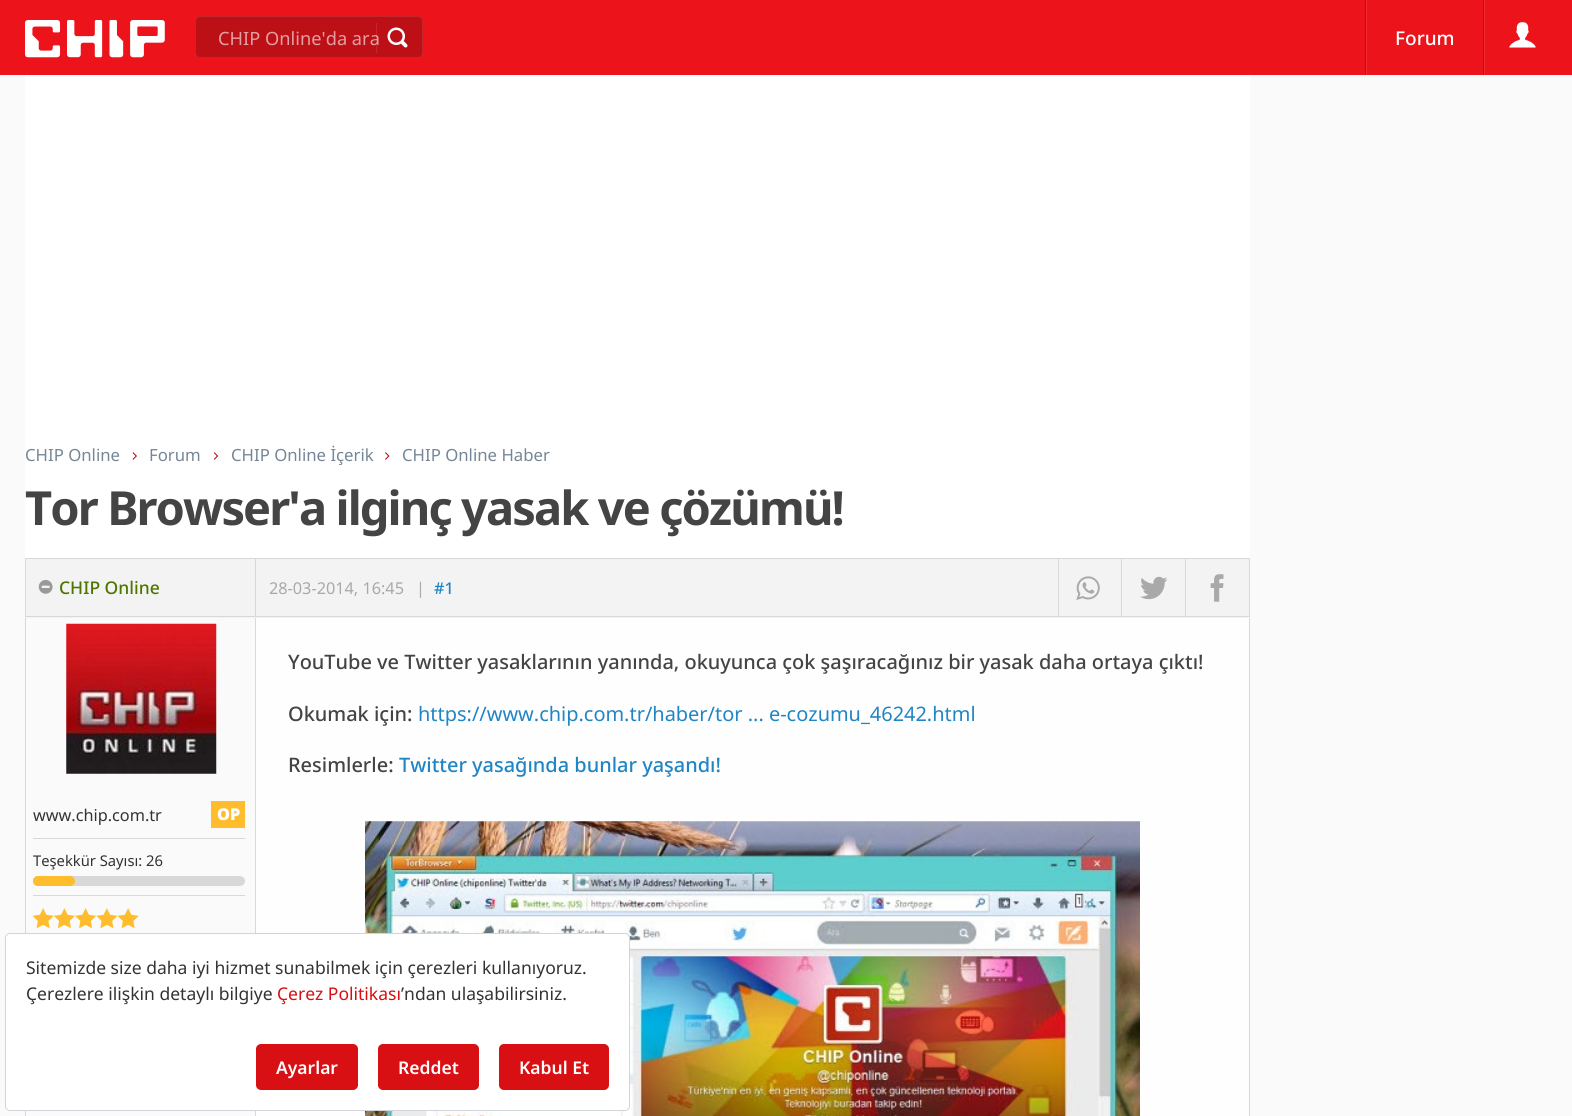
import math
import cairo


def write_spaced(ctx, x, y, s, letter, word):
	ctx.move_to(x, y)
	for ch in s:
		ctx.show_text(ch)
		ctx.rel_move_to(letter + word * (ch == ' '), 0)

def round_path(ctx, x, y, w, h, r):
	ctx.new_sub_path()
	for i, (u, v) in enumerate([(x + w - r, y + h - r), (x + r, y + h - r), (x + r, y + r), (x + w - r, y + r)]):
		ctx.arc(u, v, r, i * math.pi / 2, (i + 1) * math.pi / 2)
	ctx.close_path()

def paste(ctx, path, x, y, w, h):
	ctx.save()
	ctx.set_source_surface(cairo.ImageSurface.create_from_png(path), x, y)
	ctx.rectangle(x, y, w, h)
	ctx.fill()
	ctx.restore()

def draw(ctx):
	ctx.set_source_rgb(0.98, 0.98, 0.98)
	ctx.paint()
	ctx.set_source_rgb(0.922, 0.078, 0.106)
	ctx.rectangle(0, 0, 1572, 75)
	ctx.fill()
	paste(ctx, 'media/1.png', 25, 20, 140, 38)
	ctx.set_source_rgb(0.737, 0.063, 0.086)
	round_path(ctx, 195, 16, 228, 42, 5)
	ctx.fill()
	round_path(ctx, 195.5, 16.5, 227, 41, 4.5)
	ctx.set_source_rgba(1, 1, 1, 0.1)
	ctx.set_line_width(1)
	ctx.stroke()
	ctx.select_font_face('Noto Sans')
	ctx.set_font_size(18.25)
	ctx.set_source_rgb(0.894, 0.624, 0.635)
	ctx.move_to(218, 45)
	ctx.show_text('CHIP Online\'da ara')
	ctx.set_source_rgba(1, 1, 1, 0.1)
	ctx.rectangle(376, 23, 1, 30)
	ctx.fill()
	paste(ctx, 'media/2.png', 387, 27, 21, 21)
	ctx.set_source_rgb(0.929, 0.173, 0.196)
	ctx.rectangle(1366, 0, 1, 75)
	ctx.fill()
	ctx.set_source_rgb(0.737, 0.063, 0.086)
	ctx.rectangle(1365, 0, 1, 75)
	ctx.fill()
	ctx.select_font_face('Noto Sans Medium')
	ctx.set_font_size(19)
	ctx.set_source_rgb(1, 1, 1)
	ctx.move_to(1395, 45)
	ctx.show_text('Forum')
	ctx.set_source_rgb(0.929, 0.173, 0.196)
	ctx.rectangle(1484, 0, 1, 75)
	ctx.fill()
	ctx.set_source_rgb(0.737, 0.063, 0.086)
	ctx.rectangle(1483, 0, 1, 75)
	ctx.fill()
	paste(ctx, 'media/3.png', 1509, 22, 27, 26)
	ctx.set_source_rgb(1, 1, 1)
	ctx.rectangle(25, 75, 1225, 483)
	ctx.fill()
	ctx.select_font_face('Noto Sans')
	ctx.set_font_size(16.75)
	ctx.set_source_rgb(0.463, 0.525, 0.588)
	ctx.move_to(25, 461)
	ctx.show_text('CHIP Online')
	paste(ctx, 'media/4.png', 132, 452, 5, 8)
	ctx.move_to(149, 461)
	ctx.show_text('Forum')
	paste(ctx, 'media/5.png', 213, 452, 6, 8)
	ctx.move_to(231, 461)
	ctx.show_text('CHIP Online İçerik')
	paste(ctx, 'media/6.png', 385, 452, 5, 8)
	ctx.move_to(402, 461)
	ctx.show_text('CHIP Online Haber')
	ctx.select_font_face('Noto Sans', cairo.FONT_SLANT_NORMAL, cairo.FONT_WEIGHT_BOLD)
	ctx.set_font_size(47)
	ctx.set_source_rgb(0.267, 0.267, 0.267)
	write_spaced(ctx, 25, 525, 'Tor Browser\'a ilginç yasak ve çözümü!', -1.9, 0)
	ctx.set_source_rgb(0.953, 0.953, 0.953)
	ctx.rectangle(25, 559, 1225, 59)
	ctx.fill()
	ctx.set_source_rgb(0.847, 0.847, 0.847)
	ctx.rectangle(25, 558, 1225, 1)
	ctx.rectangle(25, 616, 1225, 1)
	ctx.rectangle(255, 559, 1, 57)
	ctx.rectangle(25, 559, 1, 57)
	ctx.fill()
	paste(ctx, 'media/7.png', 38, 580, 15, 14)
	ctx.select_font_face('Noto Sans Medium')
	ctx.set_font_size(17.5)
	ctx.set_source_rgb(0.31, 0.459, 0)
	ctx.move_to(59, 594)
	ctx.show_text('CHIP Online')
	ctx.set_source_rgb(0.847, 0.847, 0.847)
	ctx.rectangle(1249, 559, 1, 57)
	ctx.fill()
	ctx.select_font_face('Noto Sans')
	ctx.set_font_size(16.25)
	ctx.set_source_rgb(0.663, 0.663, 0.663)
	ctx.move_to(269, 594)
	ctx.show_text('28-03-2014, 16:45')
	ctx.move_to(416, 594)
	ctx.show_text('|')
	ctx.select_font_face('Noto Sans Medium')
	ctx.set_source_rgb(0.122, 0.522, 0.773)
	ctx.move_to(434, 594)
	ctx.show_text('#1')
	ctx.set_source_rgb(0.847, 0.847, 0.847)
	ctx.rectangle(1058, 559, 1, 57)
	ctx.fill()
	paste(ctx, 'media/8.png', 1076, 576, 24, 24)
	ctx.rectangle(1121, 559, 1, 57)
	ctx.fill()
	paste(ctx, 'media/9.png', 1140, 576, 28, 24)
	ctx.rectangle(1185, 559, 1, 57)
	ctx.fill()
	paste(ctx, 'media/10.png', 1210, 574, 14, 28)
	ctx.set_source_rgb(0.996, 0.996, 0.996)
	ctx.rectangle(256, 618, 993, 498)
	ctx.fill()
	ctx.set_source_rgb(0.847, 0.847, 0.847)
	ctx.rectangle(1249, 618, 1, 498)
	ctx.rectangle(255, 618, 1, 498)
	ctx.fill()
	ctx.set_font_size(19.95)
	ctx.set_source_rgb(0.267, 0.267, 0.267)
	ctx.move_to(288, 669)
	ctx.show_text('YouTube ve Twitter yasaklarının yanında, okuyunca çok şaşıracağınız bir yasak daha ortaya çıktı!')
	ctx.move_to(288, 721)
	ctx.show_text('Okumak için:')
	ctx.select_font_face('Noto Sans')
	ctx.set_source_rgb(0.122, 0.522, 0.773)
	ctx.move_to(418, 721)
	ctx.show_text('https://www.chip.com.tr/haber/tor ... e-cozumu_46242.html')
	ctx.select_font_face('Noto Sans Medium')
	ctx.set_source_rgb(0.267, 0.267, 0.267)
	ctx.move_to(288, 772)
	ctx.show_text('Resimlerle:')
	ctx.set_source_rgb(0.122, 0.522, 0.773)
	ctx.move_to(399, 772)
	ctx.show_text('Twitter yasağında bunlar yaşandı!')
	paste(ctx, 'media/11.png', 365, 821, 775, 295)
	ctx.set_source_rgb(0.847, 0.847, 0.847)
	ctx.rectangle(25, 618, 1, 498)
	ctx.fill()
	paste(ctx, 'media/12.png', 66, 623, 151, 151)
	ctx.rectangle(33, 838, 212, 1)
	ctx.fill()
	ctx.select_font_face('Noto Sans')
	ctx.set_font_size(16.25)
	ctx.set_source_rgb(0.2, 0.2, 0.2)
	ctx.move_to(33, 821)
	ctx.show_text('www.chip.com.tr')
	ctx.set_source_rgb(1, 0.741, 0.176)
	ctx.rectangle(211, 801, 34, 27)
	ctx.fill()
	ctx.select_font_face('Noto Sans Black')
	ctx.set_source_rgb(1, 1, 1)
	ctx.move_to(217, 820)
	ctx.show_text('OP')
	ctx.set_source_rgb(0.847, 0.847, 0.847)
	ctx.rectangle(33, 895, 212, 1)
	ctx.fill()
	ctx.select_font_face('Noto Sans')
	ctx.set_font_size(14.75)
	ctx.set_source_rgb(0.2, 0.2, 0.2)
	ctx.move_to(33, 866)
	ctx.show_text('Teşekkür Sayısı: 26')
	ctx.set_source_rgb(0.847, 0.847, 0.847)
	round_path(ctx, 33, 876, 212, 10, 5)
	ctx.fill()
	ctx.set_source_rgb(1, 0.741, 0.176)
	round_path(ctx, 33, 876, 42, 10, 5)
	ctx.fill()
	paste(ctx, 'media/13.png', 32, 908, 107, 21)
	ctx.set_source_rgb(1, 1, 1)
	round_path(ctx, 5.5, 933.5, 624, 177, 4.5)
	ctx.fill_preserve()
	ctx.set_source_rgb(0.82, 0.835, 0.859)
	ctx.stroke()
	ctx.set_font_size(17.5)
	ctx.set_source_rgb(0.2, 0.2, 0.2)
	ctx.move_to(26, 974)
	ctx.show_text('Sitemizde size daha iyi hizmet sunabilmek için çerezleri kullanıyoruz.')
	ctx.move_to(26, 1000)
	ctx.show_text('Çerezlere ilişkin detaylı bilgiye')
	ctx.set_source_rgb(0.843, 0.059, 0.071)
	ctx.move_to(277, 1000)
	ctx.show_text('Çerez Politikası')
	ctx.set_source_rgb(0.2, 0.2, 0.2)
	ctx.move_to(401, 1000)
	ctx.show_text('’ndan ulaşabilirsiniz.')
	ctx.set_source_rgb(0.847, 0.059, 0.078)
	round_path(ctx, 256, 1044, 102, 46, 5)
	ctx.fill()
	ctx.select_font_face('Noto Sans SemiBold')
	ctx.set_source_rgb(1, 1, 1)
	ctx.move_to(276, 1074)
	ctx.show_text('Ayarlar')
	ctx.set_source_rgb(0.847, 0.059, 0.078)
	round_path(ctx, 378, 1044, 101, 46, 5)
	ctx.fill()
	ctx.set_source_rgb(1, 1, 1)
	ctx.move_to(398, 1074)
	ctx.show_text('Reddet')
	ctx.set_source_rgb(0.847, 0.059, 0.078)
	round_path(ctx, 499, 1044, 110, 46, 5)
	ctx.fill()
	ctx.set_source_rgb(1, 1, 1)
	ctx.move_to(519, 1074)
	ctx.show_text('Kabul Et')


surface = cairo.ImageSurface(cairo.FORMAT_RGB24, 1572, 1116)
ctx = cairo.Context(surface)
options = cairo.FontOptions()
options.set_hint_metrics(cairo.HINT_METRICS_OFF)
options.set_hint_style(cairo.HINT_STYLE_NONE)
ctx.set_font_options(options)
ctx.set_miter_limit(4)
draw(ctx)
surface.write_to_png('image.png')
